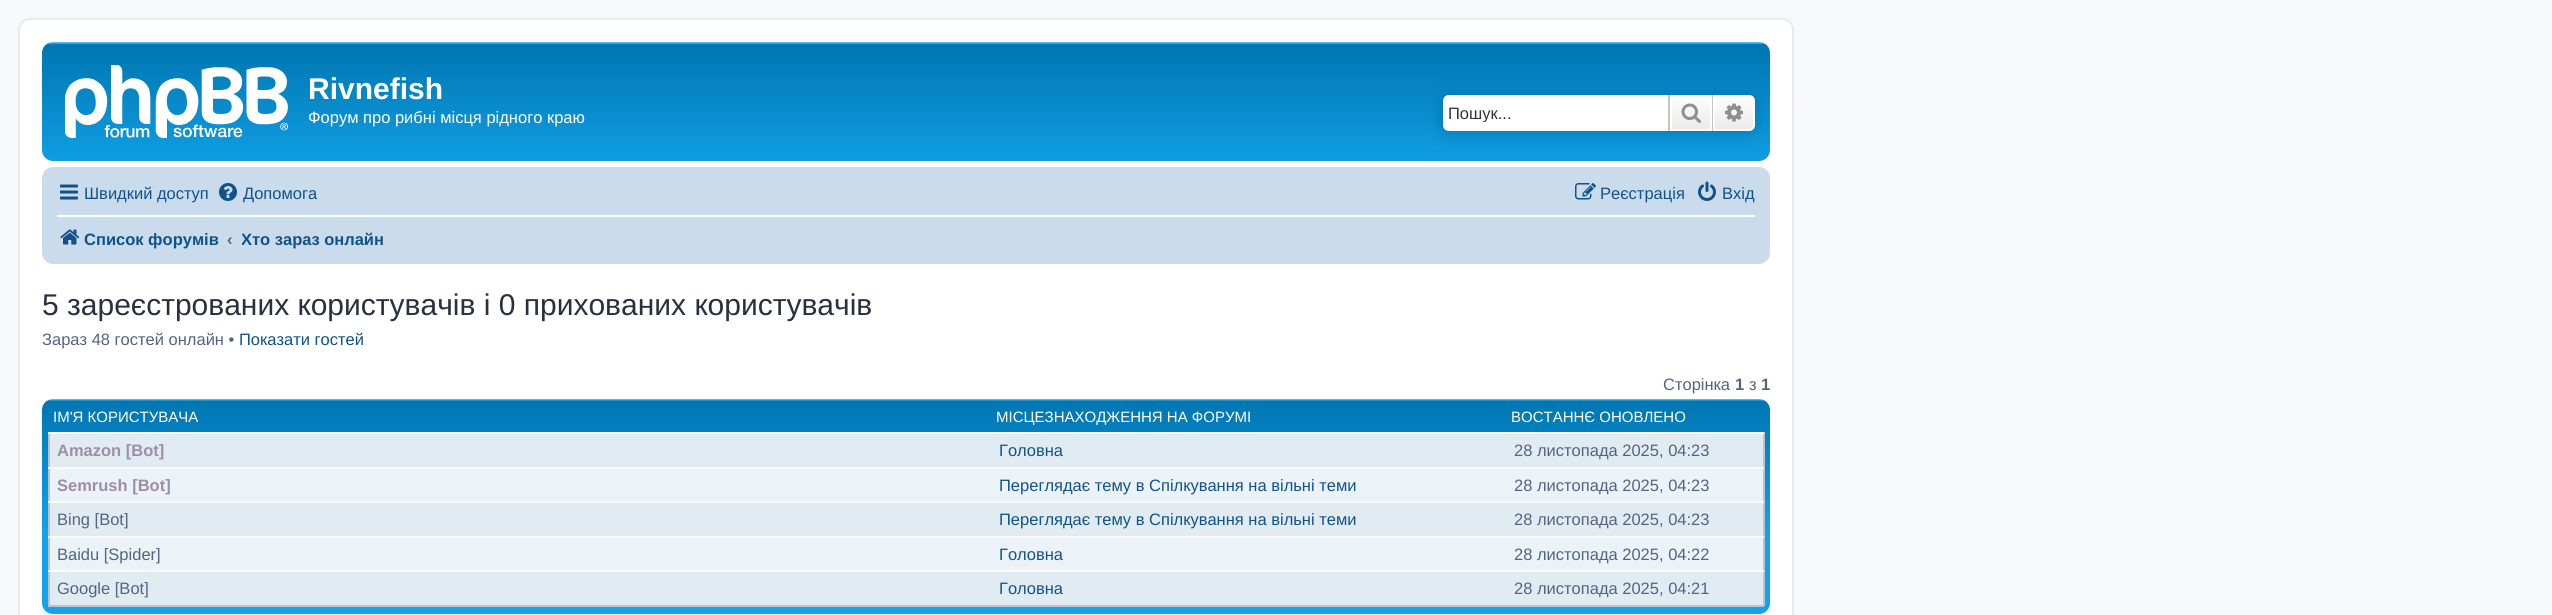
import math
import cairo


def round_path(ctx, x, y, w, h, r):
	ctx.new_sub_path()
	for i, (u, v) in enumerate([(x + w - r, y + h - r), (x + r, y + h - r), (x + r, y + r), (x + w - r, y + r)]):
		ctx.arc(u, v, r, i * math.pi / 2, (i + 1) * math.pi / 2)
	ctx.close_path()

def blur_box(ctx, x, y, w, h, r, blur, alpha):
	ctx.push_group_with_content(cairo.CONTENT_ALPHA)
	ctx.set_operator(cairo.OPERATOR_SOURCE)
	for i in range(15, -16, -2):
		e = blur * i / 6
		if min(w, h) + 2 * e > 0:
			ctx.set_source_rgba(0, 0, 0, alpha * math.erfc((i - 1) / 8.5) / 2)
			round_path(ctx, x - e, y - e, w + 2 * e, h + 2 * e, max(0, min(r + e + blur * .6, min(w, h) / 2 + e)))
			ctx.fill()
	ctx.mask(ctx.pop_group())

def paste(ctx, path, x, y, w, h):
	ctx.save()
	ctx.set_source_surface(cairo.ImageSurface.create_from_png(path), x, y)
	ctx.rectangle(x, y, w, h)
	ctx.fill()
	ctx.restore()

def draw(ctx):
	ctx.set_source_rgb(0.961, 0.969, 0.98)
	ctx.paint()
	ctx.set_source_rgb(1, 1, 1)
	round_path(ctx, 19, 19, 1774, 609, 11)
	ctx.fill_preserve()
	ctx.set_source_rgb(0.902, 0.914, 0.929)
	ctx.stroke()
	gradient = cairo.LinearGradient(906, 42, 906, 180)
	gradient.add_color_stop_rgba(0, 0.416, 0.808, 1, 1)
	gradient.add_color_stop_rgba(0.02, 0, 0.463, 0.694, 1)
	gradient.add_color_stop_rgba(1, 0.071, 0.639, 0.922, 1)
	ctx.set_source(gradient)
	round_path(ctx, 42, 42, 1728, 119, 11)
	ctx.fill()
	paste(ctx, 'media/1.png', 65, 65, 223, 73)
	ctx.select_font_face('Liberation Sans', cairo.FONT_SLANT_NORMAL, cairo.FONT_WEIGHT_BOLD)
	ctx.set_font_size(30)
	ctx.set_source_rgb(1, 1, 1)
	ctx.move_to(308, 99)
	ctx.show_text('Rivnefish')
	ctx.select_font_face('Liberation Sans')
	ctx.set_font_size(16.5)
	ctx.move_to(308, 123)
	ctx.show_text('Форум про рибні місця рідного краю')
	ctx.set_source_rgb(0, 0.459, 0.69)
	blur_box(ctx, 1443, 95, 312, 36, 6, 7.5, 1)
	ctx.set_source_rgb(1, 1, 1)
	ctx.new_path()
	ctx.move_to(1449, 95)
	ctx.line_to(1668, 95)
	ctx.line_to(1668, 131)
	ctx.line_to(1449, 131)
	ctx.curve_to(1445.5, 131, 1443, 128.5, 1443, 125)
	ctx.line_to(1443, 101)
	ctx.curve_to(1443, 97.5, 1445.5, 95, 1449, 95)
	ctx.close_path()
	ctx.fill()
	ctx.save()
	ctx.rectangle(1448, 104, 210, 18)
	ctx.clip()
	ctx.set_source_rgb(0.2, 0.2, 0.2)
	ctx.move_to(1448, 119)
	ctx.show_text('Пошук...')
	ctx.restore()
	gradient = cairo.LinearGradient(1691, 95, 1691, 131)
	gradient.add_color_stop_rgba(0, 1, 1, 1, 1)
	gradient.add_color_stop_rgba(1, 0.914, 0.914, 0.914, 1)
	ctx.set_source(gradient)
	ctx.rectangle(1672, 97, 38, 32)
	ctx.fill()
	ctx.rectangle(1671, 96, 40, 34)
	ctx.set_source_rgb(1, 1, 1)
	ctx.stroke()
	ctx.set_source_rgb(0.78, 0.765, 0.749)
	ctx.rectangle(1712, 95, 1, 36)
	ctx.fill()
	ctx.rectangle(1668, 95, 2, 36)
	ctx.fill()
	paste(ctx, 'media/2.png', 1681, 103, 20, 20)
	gradient = cairo.LinearGradient(1734, 95, 1734, 131)
	gradient.add_color_stop_rgba(0, 1, 1, 1, 1)
	gradient.add_color_stop_rgba(1, 0.914, 0.914, 0.914, 1)
	ctx.set_source(gradient)
	ctx.new_path()
	ctx.move_to(1714, 96)
	ctx.line_to(1749, 96)
	ctx.curve_to(1752, 96, 1754, 98, 1754, 101)
	ctx.line_to(1754, 125)
	ctx.curve_to(1754, 128, 1752, 130, 1749, 130)
	ctx.line_to(1714, 130)
	ctx.close_path()
	ctx.fill_preserve()
	ctx.set_source_rgb(1, 1, 1)
	ctx.stroke()
	paste(ctx, 'media/3.png', 1725, 103, 18, 19)
	ctx.set_source_rgb(0.792, 0.863, 0.922)
	round_path(ctx, 42, 167, 1728, 97, 11)
	ctx.fill()
	paste(ctx, 'media/4.png', 60, 184, 18, 16)
	ctx.set_source_rgb(0.063, 0.322, 0.537)
	ctx.move_to(84, 199)
	ctx.show_text('Швидкий доступ')
	paste(ctx, 'media/5.png', 219, 183, 18, 18)
	ctx.move_to(243, 199)
	ctx.show_text('Допомога')
	paste(ctx, 'media/6.png', 1575, 183, 21, 17)
	ctx.move_to(1600, 199)
	ctx.show_text('Реєстрація')
	paste(ctx, 'media/7.png', 1698, 181, 18, 20)
	ctx.move_to(1722, 199)
	ctx.show_text('Вхід')
	ctx.set_source_rgb(1, 1, 1)
	ctx.rectangle(57, 215, 1698, 2)
	ctx.fill()
	paste(ctx, 'media/8.png', 60, 229, 20, 16)
	ctx.select_font_face('Liberation Sans', cairo.FONT_SLANT_NORMAL, cairo.FONT_WEIGHT_BOLD)
	ctx.set_source_rgb(0.063, 0.322, 0.537)
	ctx.move_to(84, 245)
	ctx.show_text('Список форумів')
	ctx.set_source_rgb(0.325, 0.392, 0.51)
	ctx.move_to(227, 245)
	ctx.show_text('‹')
	ctx.save()
	ctx.rectangle(242, 221, 142, 36)
	ctx.clip()
	ctx.set_source_rgb(0.063, 0.322, 0.537)
	ctx.move_to(241, 245)
	ctx.show_text('Хто зараз онлайн')
	ctx.restore()
	ctx.select_font_face('Liberation Sans')
	ctx.set_font_size(30)
	ctx.set_source_rgb(0.157, 0.192, 0.247)
	ctx.move_to(42, 315)
	ctx.show_text('5 зареєстрованих користувачів і 0 прихованих користувачів')
	ctx.set_font_size(16.5)
	ctx.set_source_rgb(0.325, 0.392, 0.51)
	ctx.move_to(42, 345)
	ctx.show_text('Зараз 48 гостей онлайн •')
	ctx.set_source_rgb(0.063, 0.322, 0.537)
	ctx.move_to(239, 345)
	ctx.show_text('Показати гостей')
	ctx.set_source_rgb(0.325, 0.392, 0.51)
	ctx.move_to(1663, 390)
	ctx.show_text('Сторінка')
	ctx.select_font_face('Liberation Sans', cairo.FONT_SLANT_NORMAL, cairo.FONT_WEIGHT_BOLD)
	ctx.move_to(1735, 390)
	ctx.show_text('1')
	ctx.select_font_face('Liberation Sans')
	ctx.move_to(1749, 390)
	ctx.show_text('з')
	ctx.select_font_face('Liberation Sans', cairo.FONT_SLANT_NORMAL, cairo.FONT_WEIGHT_BOLD)
	ctx.move_to(1761, 390)
	ctx.show_text('1')
	gradient = cairo.LinearGradient(906, 399, 906, 614)
	gradient.add_color_stop_rgba(0, 0.416, 0.808, 1, 1)
	gradient.add_color_stop_rgba(0.01, 0, 0.463, 0.694, 1)
	gradient.add_color_stop_rgba(0.64, 0.071, 0.639, 0.922, 1)
	gradient.add_color_stop_rgba(1, 0.071, 0.639, 0.922, 1)
	ctx.set_source(gradient)
	round_path(ctx, 42, 399, 1728, 215, 11)
	ctx.fill()
	ctx.select_font_face('Liberation Sans')
	ctx.set_font_size(15)
	ctx.set_source_rgb(1, 1, 1)
	for x, y, s in [
		(53, 422, 'ІМ\'Я КОРИСТУВАЧА'),
		(996, 422, 'МІСЦЕЗНАХОДЖЕННЯ НА ФОРУМІ'),
		(1511, 422, 'ВОСТАННЄ ОНОВЛЕНО'),
	]:
		ctx.move_to(x, y)
		ctx.show_text(s)
	ctx.set_source_rgb(0.882, 0.922, 0.949)
	ctx.rectangle(50, 434, 1713, 33)
	ctx.fill()
	ctx.select_font_face('Liberation Sans', cairo.FONT_SLANT_NORMAL, cairo.FONT_WEIGHT_BOLD)
	ctx.set_font_size(16.5)
	ctx.set_source_rgb(0.62, 0.553, 0.655)
	ctx.move_to(57, 456)
	ctx.show_text('Amazon [Bot]')
	ctx.select_font_face('Liberation Sans')
	ctx.set_source_rgb(0.063, 0.322, 0.537)
	ctx.move_to(999, 456)
	ctx.show_text('Головна')
	ctx.set_source_rgb(0.749, 0.757, 0.812)
	ctx.rectangle(1763, 432, 2, 174)
	ctx.rectangle(48, 605, 1716, 2)
	ctx.rectangle(48, 432, 2, 174)
	ctx.fill()
	ctx.set_source_rgb(0.98, 0.98, 0.98)
	ctx.rectangle(48, 432, 1716, 2)
	ctx.fill()
	ctx.set_source_rgb(0.325, 0.392, 0.51)
	ctx.move_to(1514, 456)
	ctx.show_text('28 листопада 2025, 04:23')
	ctx.set_source_rgb(0.925, 0.953, 0.969)
	ctx.rectangle(50, 469, 1713, 32)
	ctx.fill()
	ctx.select_font_face('Liberation Sans', cairo.FONT_SLANT_NORMAL, cairo.FONT_WEIGHT_BOLD)
	ctx.set_source_rgb(0.62, 0.553, 0.655)
	ctx.move_to(57, 491)
	ctx.show_text('Semrush [Bot]')
	ctx.select_font_face('Liberation Sans')
	ctx.set_source_rgb(0.063, 0.322, 0.537)
	ctx.move_to(999, 491)
	ctx.show_text('Переглядає тему в Спілкування на вільні теми')
	ctx.set_source_rgb(0.98, 0.98, 0.98)
	ctx.rectangle(48, 467, 1716, 2)
	ctx.fill()
	ctx.set_source_rgb(0.325, 0.392, 0.51)
	ctx.move_to(1514, 491)
	ctx.show_text('28 листопада 2025, 04:23')
	ctx.set_source_rgb(0.882, 0.922, 0.949)
	ctx.rectangle(50, 503, 1713, 33)
	ctx.fill()
	ctx.set_source_rgb(0.325, 0.392, 0.51)
	ctx.move_to(57, 525)
	ctx.show_text('Bing [Bot]')
	ctx.set_source_rgb(0.063, 0.322, 0.537)
	ctx.move_to(999, 525)
	ctx.show_text('Переглядає тему в Спілкування на вільні теми')
	ctx.set_source_rgb(0.98, 0.98, 0.98)
	ctx.rectangle(48, 501, 1716, 2)
	ctx.fill()
	ctx.set_source_rgb(0.325, 0.392, 0.51)
	ctx.move_to(1514, 525)
	ctx.show_text('28 листопада 2025, 04:23')
	ctx.set_source_rgb(0.925, 0.953, 0.969)
	ctx.rectangle(50, 538, 1713, 32)
	ctx.fill()
	ctx.set_source_rgb(0.325, 0.392, 0.51)
	ctx.move_to(57, 560)
	ctx.show_text('Baidu [Spider]')
	ctx.set_source_rgb(0.063, 0.322, 0.537)
	ctx.move_to(999, 560)
	ctx.show_text('Головна')
	ctx.set_source_rgb(0.98, 0.98, 0.98)
	ctx.rectangle(48, 536, 1716, 2)
	ctx.fill()
	ctx.set_source_rgb(0.325, 0.392, 0.51)
	ctx.move_to(1514, 560)
	ctx.show_text('28 листопада 2025, 04:22')
	ctx.set_source_rgb(0.882, 0.922, 0.949)
	ctx.rectangle(50, 572, 1713, 33)
	ctx.fill()
	ctx.set_source_rgb(0.325, 0.392, 0.51)
	ctx.move_to(57, 594)
	ctx.show_text('Google [Bot]')
	ctx.set_source_rgb(0.063, 0.322, 0.537)
	ctx.move_to(999, 594)
	ctx.show_text('Головна')
	ctx.set_source_rgb(0.98, 0.98, 0.98)
	ctx.rectangle(48, 570, 1716, 2)
	ctx.fill()
	ctx.set_source_rgb(0.325, 0.392, 0.51)
	ctx.move_to(1514, 594)
	ctx.show_text('28 листопада 2025, 04:21')


surface = cairo.ImageSurface(cairo.FORMAT_RGB24, 2552, 615)
ctx = cairo.Context(surface)
options = cairo.FontOptions()
options.set_hint_metrics(cairo.HINT_METRICS_OFF)
options.set_hint_style(cairo.HINT_STYLE_NONE)
ctx.set_font_options(options)
ctx.set_miter_limit(4)
draw(ctx)
surface.write_to_png('image.png')
